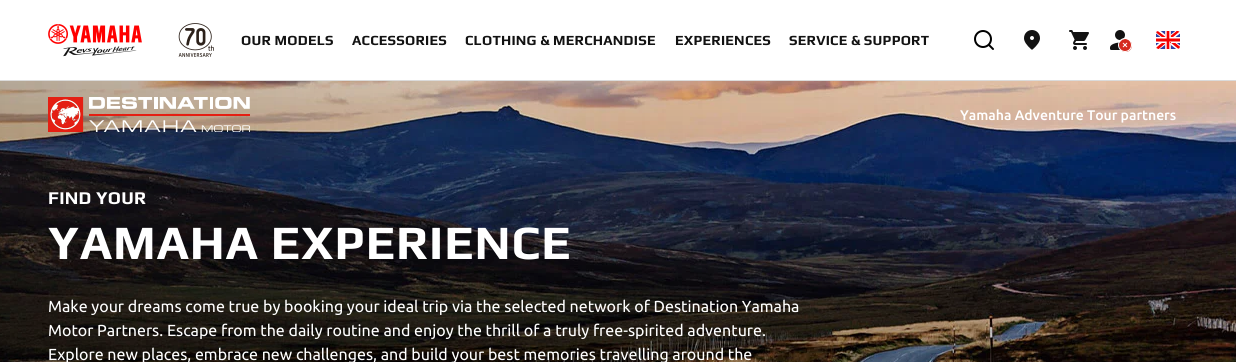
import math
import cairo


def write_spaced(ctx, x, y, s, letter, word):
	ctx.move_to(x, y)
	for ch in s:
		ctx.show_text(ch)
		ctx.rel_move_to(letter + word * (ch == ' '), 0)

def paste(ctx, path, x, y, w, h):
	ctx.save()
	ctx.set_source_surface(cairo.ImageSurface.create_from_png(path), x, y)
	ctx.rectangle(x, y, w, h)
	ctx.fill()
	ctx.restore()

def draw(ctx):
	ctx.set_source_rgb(1, 1, 1)
	ctx.paint()
	ctx.set_source_rgb(0.859, 0.859, 0.859)
	ctx.rectangle(0, 80, 1236, 1)
	ctx.fill()
	paste(ctx, 'media/1.png', 48, 24, 94, 33)
	paste(ctx, 'media/2.png', 178, 23, 36, 34)
	ctx.select_font_face('Play', cairo.FONT_SLANT_NORMAL, cairo.FONT_WEIGHT_BOLD)
	ctx.set_font_size(14)
	ctx.set_source_rgb(0.071, 0.071, 0.071)
	for x, y, s in [
		(241, 45, 'OUR MODELS'),
		(352, 45, 'ACCESSORIES'),
		(465, 45, 'CLOTHING & MERCHANDISE'),
		(675, 45, 'EXPERIENCES'),
		(789, 45, 'SERVICE & SUPPORT'),
	]:
		write_spaced(ctx, x, y, s, 0.25, 0)
	paste(ctx, 'media/3.png', 974, 30, 20, 20)
	paste(ctx, 'media/4.png', 1024, 30, 16, 20)
	paste(ctx, 'media/5.png', 1069, 30, 20, 20)
	paste(ctx, 'media/6.png', 1110, 30, 22, 22)
	paste(ctx, 'media/7.png', 1156, 31, 24, 18)
	paste(ctx, 'media/9.png', 0, 81, 1236, 281)
	paste(ctx, 'media/8.png', 48, 97, 202, 35)
	ctx.select_font_face('Ubuntu Medium')
	ctx.set_source_rgb(1, 1, 1)
	ctx.move_to(960, 120)
	ctx.show_text('Yamaha Adventure Tour partners')
	ctx.select_font_face('Play', cairo.FONT_SLANT_NORMAL, cairo.FONT_WEIGHT_BOLD)
	ctx.set_font_size(18)
	write_spaced(ctx, 48, 204, 'FIND YOUR', 0.25, 0)
	ctx.set_font_size(48)
	write_spaced(ctx, 48, 259, 'YAMAHA EXPERIENCE', 1, 0)
	ctx.select_font_face('Ubuntu')
	ctx.set_font_size(16)
	for x, y, s in [
		(48, 312, 'Make your dreams come true by booking your ideal trip via the selected network of Destination Yamaha'),
		(48, 336, 'Motor Partners. Escape from the daily routine and enjoy the thrill of a truly free-spirited adventure.'),
		(48, 360, 'Explore new places, embrace new challenges, and build your best memories travelling around the'),
	]:
		ctx.move_to(x, y)
		ctx.show_text(s)


surface = cairo.ImageSurface(cairo.FORMAT_RGB24, 1236, 362)
ctx = cairo.Context(surface)
options = cairo.FontOptions()
options.set_hint_metrics(cairo.HINT_METRICS_OFF)
options.set_hint_style(cairo.HINT_STYLE_NONE)
ctx.set_font_options(options)
ctx.set_miter_limit(4)
draw(ctx)
surface.write_to_png('image.png')
